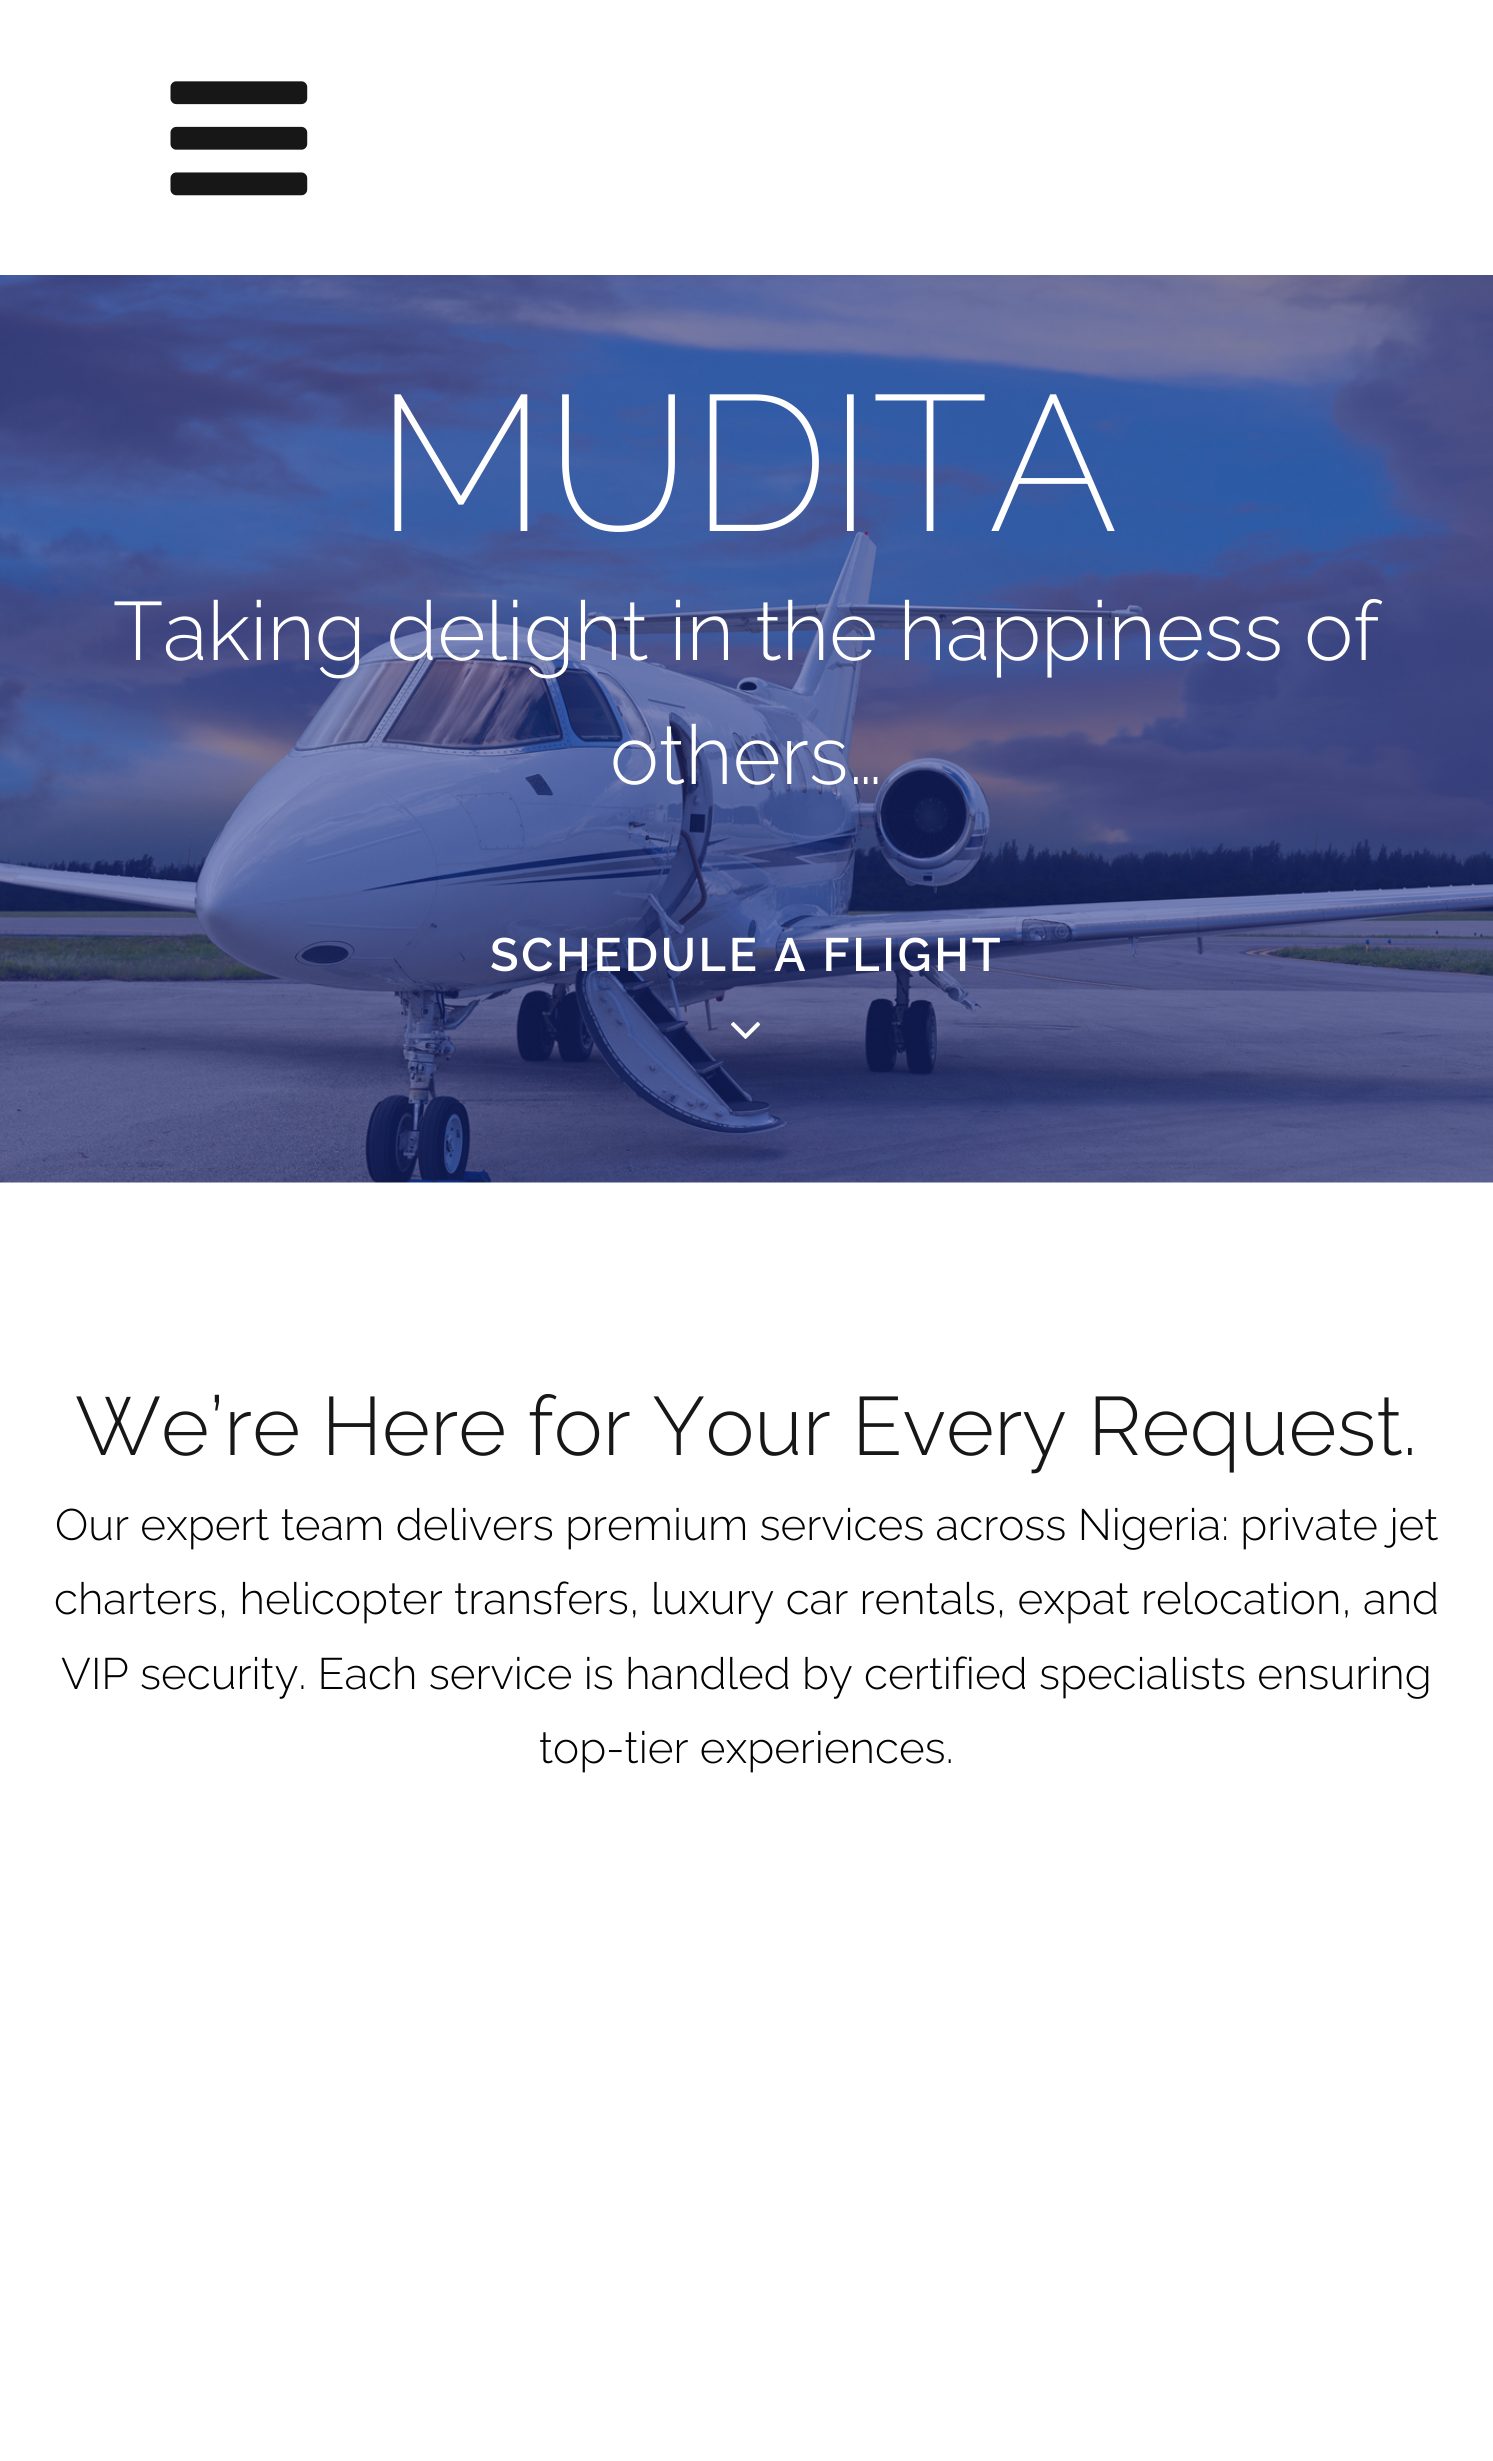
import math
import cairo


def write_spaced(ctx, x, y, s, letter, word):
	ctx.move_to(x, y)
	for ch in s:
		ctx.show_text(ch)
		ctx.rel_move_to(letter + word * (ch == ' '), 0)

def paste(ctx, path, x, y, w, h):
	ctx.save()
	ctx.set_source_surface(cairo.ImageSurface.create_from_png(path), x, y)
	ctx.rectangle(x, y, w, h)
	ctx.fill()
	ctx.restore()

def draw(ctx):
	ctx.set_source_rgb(1, 1, 1)
	ctx.paint()
	paste(ctx, 'media/1.png', 170, 81, 138, 115)
	paste(ctx, 'media/2.png', 0, 275, 1493, 908)
	ctx.select_font_face('Raleway ExtraLight')
	ctx.set_font_size(192.5)
	ctx.set_source_rgb(1, 1, 1)
	ctx.move_to(376, 531)
	ctx.show_text('MUDITA')
	ctx.select_font_face('Raleway Light')
	ctx.set_font_size(82.5)
	ctx.move_to(113, 660)
	ctx.show_text('Taking delight in the happiness of')
	ctx.move_to(610, 784)
	ctx.show_text('others…')
	ctx.select_font_face('Raleway SemiBold')
	ctx.set_font_size(46.75)
	write_spaced(ctx, 490, 971, 'SCHEDULE A FLIGHT', 2.75, 0)
	paste(ctx, 'media/3.png', 731, 1022, 30, 17)
	ctx.select_font_face('Raleway Light')
	ctx.set_font_size(82.5)
	ctx.set_source_rgb(0.09, 0.09, 0.09)
	ctx.move_to(75, 1455)
	ctx.show_text('We’re Here for Your Every Request.')
	ctx.set_font_size(44)
	ctx.set_source_rgb(0.008, 0.008, 0.008)
	for x, y, s in [
		(55, 1540, 'Our expert team delivers premium services across Nigeria: private jet'),
		(54, 1614, 'charters, helicopter transfers, luxury car rentals, expat relocation, and'),
		(61, 1689, 'VIP security. Each service is handled by certified specialists ensuring'),
		(539, 1763, 'top-tier experiences.'),
	]:
		ctx.move_to(x, y)
		ctx.show_text(s)


surface = cairo.ImageSurface(cairo.FORMAT_RGB24, 1493, 2461)
ctx = cairo.Context(surface)
options = cairo.FontOptions()
options.set_hint_metrics(cairo.HINT_METRICS_OFF)
options.set_hint_style(cairo.HINT_STYLE_NONE)
ctx.set_font_options(options)
ctx.set_miter_limit(4)
draw(ctx)
surface.write_to_png('image.png')
